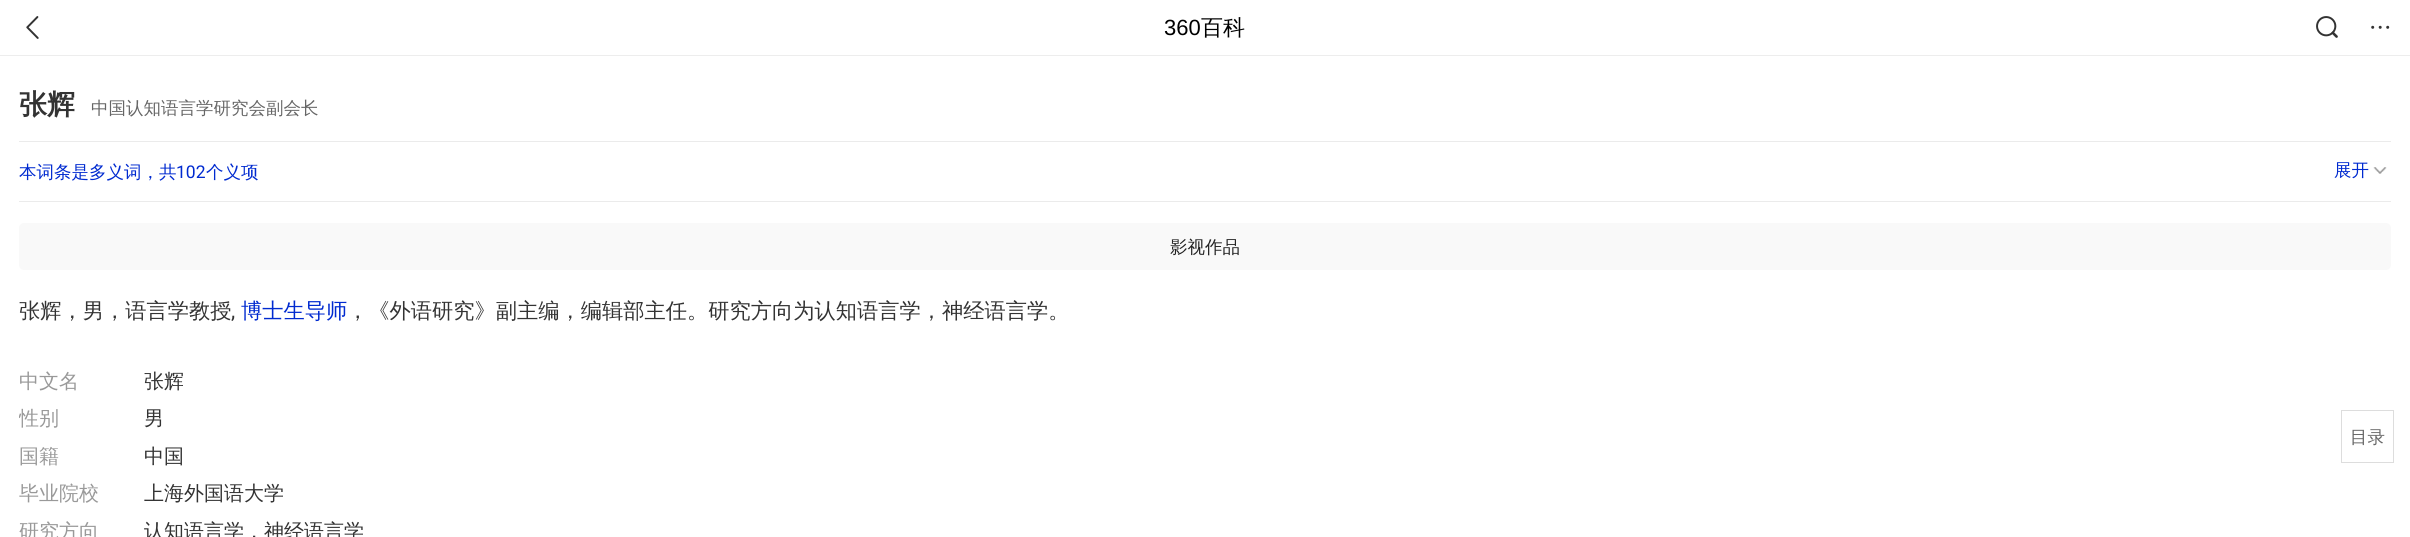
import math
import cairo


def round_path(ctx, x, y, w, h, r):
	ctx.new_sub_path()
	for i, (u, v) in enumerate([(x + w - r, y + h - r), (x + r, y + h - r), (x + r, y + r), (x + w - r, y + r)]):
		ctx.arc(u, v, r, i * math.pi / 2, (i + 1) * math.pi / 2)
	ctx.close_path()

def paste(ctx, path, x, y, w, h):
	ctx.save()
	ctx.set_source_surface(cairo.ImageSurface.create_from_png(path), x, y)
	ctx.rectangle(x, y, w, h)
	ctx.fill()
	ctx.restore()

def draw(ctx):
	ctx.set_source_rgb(1, 1, 1)
	ctx.paint()
	ctx.set_source_rgb(0.929, 0.929, 0.929)
	ctx.rectangle(0, 55, 2410, 1)
	ctx.fill()
	paste(ctx, 'media/1.png', 26, 16, 13, 23)
	ctx.select_font_face('Liberation Sans')
	ctx.set_font_size(22)
	ctx.set_source_rgb(0, 0, 0)
	ctx.move_to(1164, 35)
	ctx.show_text('360')
	ctx.select_font_face('WenQuanYi Zen Hei Medium')
	ctx.move_to(1201, 35)
	ctx.show_text('百科')
	paste(ctx, 'media/2.png', 2316, 16, 22, 22)
	ctx.set_source_rgb(0.2, 0.2, 0.2)
	ctx.arc(2372.7, 27.3, 1.5, 0, 2 * math.pi)
	ctx.fill()
	ctx.arc(2380.2, 27.3, 1.5, 0, 2 * math.pi)
	ctx.fill()
	ctx.arc(2387.7, 27.3, 1.5, 0, 2 * math.pi)
	ctx.fill()
	ctx.rectangle(2341.5, 410.5, 52, 52)
	ctx.set_source_rgb(0.867, 0.867, 0.867)
	ctx.set_line_width(1)
	ctx.stroke()
	ctx.set_font_size(17.5)
	ctx.set_source_rgb(0.4, 0.4, 0.4)
	ctx.move_to(2350, 443)
	ctx.show_text('目录')
	ctx.select_font_face('WenQuanYi Zen Hei', cairo.FONT_SLANT_NORMAL, cairo.FONT_WEIGHT_BOLD)
	ctx.set_font_size(28)
	ctx.set_source_rgb(0.2, 0.2, 0.2)
	ctx.move_to(19, 114)
	ctx.show_text('张辉')
	ctx.select_font_face('WenQuanYi Zen Hei Medium')
	ctx.set_font_size(17.5)
	ctx.set_source_rgb(0.4, 0.4, 0.4)
	ctx.move_to(91, 114)
	ctx.show_text('中国认知语言学研究会副会长')
	ctx.set_source_rgb(0.918, 0.918, 0.918)
	ctx.rectangle(19, 141, 2372, 1)
	ctx.fill()
	ctx.set_source_rgb(0, 0.165, 0.816)
	ctx.move_to(19, 178)
	ctx.show_text('本词条是多义词，共')
	ctx.select_font_face('Roboto')
	ctx.move_to(176, 178)
	ctx.show_text('102')
	ctx.select_font_face('WenQuanYi Zen Hei Medium')
	ctx.move_to(206, 178)
	ctx.show_text('个义项')
	ctx.move_to(2334, 176)
	ctx.show_text('展开')
	paste(ctx, 'media/3.png', 2373, 167, 14, 7)
	ctx.set_source_rgb(0.918, 0.918, 0.918)
	ctx.rectangle(19, 201, 2372, 1)
	ctx.fill()
	ctx.set_source_rgb(0.973, 0.973, 0.973)
	round_path(ctx, 19, 223, 2372, 47, 5)
	ctx.fill()
	ctx.set_source_rgb(0.133, 0.133, 0.133)
	ctx.move_to(1170, 253)
	ctx.show_text('影视作品')
	ctx.set_font_size(21.25)
	ctx.set_source_rgb(0.2, 0.2, 0.2)
	ctx.move_to(19, 318)
	ctx.show_text('张辉，男，语言学教授')
	ctx.select_font_face('Roboto')
	ctx.move_to(231, 318)
	ctx.show_text(',')
	ctx.select_font_face('WenQuanYi Zen Hei Medium')
	ctx.set_source_rgb(0, 0.165, 0.816)
	ctx.move_to(241, 318)
	ctx.show_text('博士生导师')
	ctx.set_source_rgb(0.2, 0.2, 0.2)
	ctx.move_to(347, 318)
	ctx.show_text('，《外语研究》副主编，编辑部主任。研究方向为认知语言学，神经语言学。')
	ctx.set_font_size(20)
	ctx.set_source_rgb(0.6, 0.6, 0.6)
	ctx.move_to(19, 388)
	ctx.show_text('中文名')
	ctx.set_source_rgb(0.2, 0.2, 0.2)
	ctx.move_to(144, 388)
	ctx.show_text('张辉')
	ctx.save()
	ctx.rectangle(19, 400, 125, 38)
	ctx.clip()
	ctx.set_source_rgb(0.6, 0.6, 0.6)
	ctx.move_to(19, 425)
	ctx.show_text('性别')
	ctx.restore()
	ctx.move_to(144, 425)
	ctx.show_text('男')
	ctx.set_source_rgb(0.6, 0.6, 0.6)
	ctx.move_to(19, 463)
	ctx.show_text('国籍')
	ctx.set_source_rgb(0.2, 0.2, 0.2)
	ctx.move_to(144, 463)
	ctx.show_text('中国')
	ctx.set_source_rgb(0.6, 0.6, 0.6)
	ctx.move_to(19, 500)
	ctx.show_text('毕业院校')
	ctx.set_source_rgb(0.2, 0.2, 0.2)
	ctx.move_to(144, 500)
	ctx.show_text('上海外国语大学')
	ctx.set_source_rgb(0.6, 0.6, 0.6)
	ctx.move_to(19, 538)
	ctx.show_text('研究方向')
	ctx.set_source_rgb(0.2, 0.2, 0.2)
	ctx.move_to(144, 538)
	ctx.show_text('认知语言学，神经语言学')


surface = cairo.ImageSurface(cairo.FORMAT_RGB24, 2410, 537)
ctx = cairo.Context(surface)
options = cairo.FontOptions()
options.set_hint_metrics(cairo.HINT_METRICS_OFF)
options.set_hint_style(cairo.HINT_STYLE_NONE)
ctx.set_font_options(options)
ctx.set_miter_limit(4)
draw(ctx)
surface.write_to_png('image.png')
